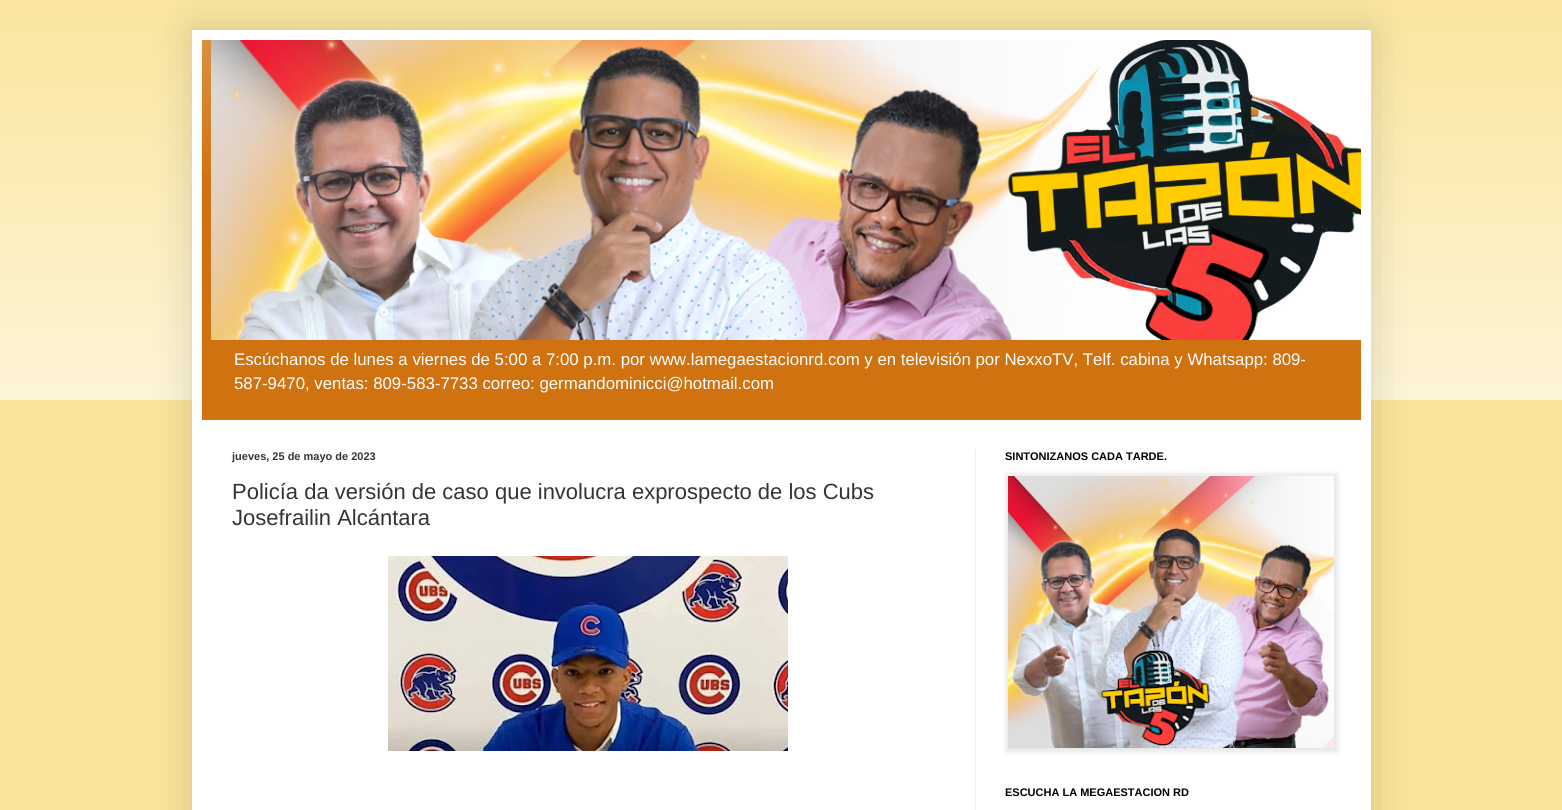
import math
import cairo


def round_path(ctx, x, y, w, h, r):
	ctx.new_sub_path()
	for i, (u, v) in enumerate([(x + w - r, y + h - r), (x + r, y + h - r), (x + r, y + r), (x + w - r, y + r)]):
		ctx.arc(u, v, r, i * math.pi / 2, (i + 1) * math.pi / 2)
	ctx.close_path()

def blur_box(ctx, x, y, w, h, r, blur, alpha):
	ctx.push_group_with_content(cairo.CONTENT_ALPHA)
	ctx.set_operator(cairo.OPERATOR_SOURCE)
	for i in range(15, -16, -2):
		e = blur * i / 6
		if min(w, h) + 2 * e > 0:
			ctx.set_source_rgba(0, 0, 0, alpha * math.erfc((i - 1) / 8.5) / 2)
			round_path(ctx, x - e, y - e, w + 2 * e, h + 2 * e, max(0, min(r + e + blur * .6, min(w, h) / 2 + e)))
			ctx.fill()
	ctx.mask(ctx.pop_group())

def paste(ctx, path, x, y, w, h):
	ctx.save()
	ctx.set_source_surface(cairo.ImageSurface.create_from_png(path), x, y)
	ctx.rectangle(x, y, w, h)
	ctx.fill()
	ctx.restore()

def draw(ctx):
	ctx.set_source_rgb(0.98, 0.894, 0.6)
	ctx.paint()
	paste(ctx, 'media/1.png', 0, 0, 1562, 400)
	ctx.set_source_rgb(0, 0, 0)
	blur_box(ctx, 192, 30, 1179, 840, 0, 20, 0.15)
	ctx.set_source_rgb(1, 1, 1)
	ctx.rectangle(192, 30, 1179, 780)
	ctx.fill()
	ctx.set_source_rgb(0.82, 0.447, 0.067)
	ctx.rectangle(202, 40, 1159, 380)
	ctx.fill()
	paste(ctx, 'media/2.png', 202, 40, 9, 133)
	paste(ctx, 'media/3.png', 211, 40, 1150, 300)
	ctx.select_font_face('Liberation Sans')
	ctx.set_font_size(16.8)
	ctx.set_source_rgb(1, 1, 1)
	ctx.move_to(234, 365)
	ctx.show_text('Escúchanos de lunes a viernes de 5:00 a 7:00 p.m. por www.lamegaestacionrd.com y en televisión por NexxoTV, Telf. cabina y Whatsapp: 809-')
	ctx.move_to(234, 389)
	ctx.show_text('587-9470, ventas: 809-583-7733 correo: germandominicci@hotmail.com')
	ctx.set_source_rgb(0.937, 0.937, 0.937)
	ctx.rectangle(975, 450, 1, 360)
	ctx.fill()
	ctx.select_font_face('Liberation Sans', cairo.FONT_SLANT_NORMAL, cairo.FONT_WEIGHT_BOLD)
	ctx.set_font_size(11)
	ctx.set_source_rgb(0.204, 0.204, 0.204)
	ctx.move_to(232, 460)
	ctx.show_text('jueves, 25 de mayo de 2023')
	ctx.select_font_face('Liberation Sans')
	ctx.set_font_size(22)
	ctx.move_to(232, 499)
	ctx.show_text('Policía da versión de caso que involucra exprospecto de los Cubs')
	ctx.move_to(232, 525)
	ctx.show_text('Josefrailin Alcántara')
	paste(ctx, 'media/4.png', 388, 556, 400, 195)
	ctx.select_font_face('Liberation Sans', cairo.FONT_SLANT_NORMAL, cairo.FONT_WEIGHT_BOLD)
	ctx.set_font_size(11)
	ctx.set_source_rgb(0, 0, 0)
	ctx.move_to(1005, 460)
	ctx.show_text('SINTONIZANOS CADA TARDE.')
	ctx.set_source_rgb(0, 0, 0)
	blur_box(ctx, 1006, 474, 332, 278, 0, 2.5, 0.1)
	ctx.rectangle(1005.5, 473.5, 331, 277)
	ctx.set_source_rgb(0.937, 0.937, 0.937)
	ctx.set_line_width(1)
	ctx.stroke()
	paste(ctx, 'media/5.png', 1008, 476, 326, 272)
	ctx.set_source_rgb(0, 0, 0)
	ctx.move_to(1005, 796)
	ctx.show_text('ESCUCHA LA MEGAESTACION RD')


surface = cairo.ImageSurface(cairo.FORMAT_RGB24, 1562, 810)
ctx = cairo.Context(surface)
options = cairo.FontOptions()
options.set_hint_metrics(cairo.HINT_METRICS_OFF)
options.set_hint_style(cairo.HINT_STYLE_NONE)
ctx.set_font_options(options)
ctx.set_miter_limit(4)
draw(ctx)
surface.write_to_png('image.png')
